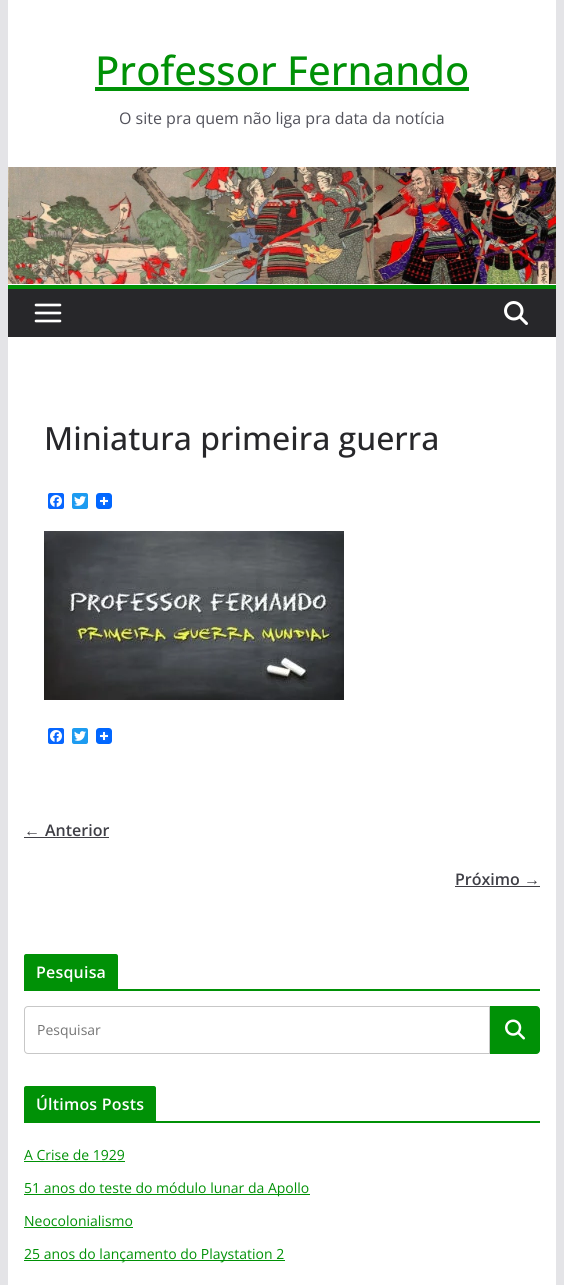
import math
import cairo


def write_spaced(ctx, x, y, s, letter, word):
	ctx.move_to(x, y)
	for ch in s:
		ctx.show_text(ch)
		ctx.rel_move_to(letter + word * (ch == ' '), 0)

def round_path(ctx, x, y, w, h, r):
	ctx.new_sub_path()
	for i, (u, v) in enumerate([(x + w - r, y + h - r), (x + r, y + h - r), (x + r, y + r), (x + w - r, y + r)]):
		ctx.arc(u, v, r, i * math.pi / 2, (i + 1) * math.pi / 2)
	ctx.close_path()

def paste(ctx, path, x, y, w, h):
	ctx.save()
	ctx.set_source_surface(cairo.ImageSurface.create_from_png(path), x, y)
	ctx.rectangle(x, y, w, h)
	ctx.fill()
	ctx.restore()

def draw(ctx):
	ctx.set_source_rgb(0.894, 0.894, 0.906)
	ctx.paint()
	ctx.set_source_rgb(1, 1, 1)
	ctx.rectangle(8, 0, 548, 285)
	ctx.fill()
	ctx.select_font_face('Open Sans Medium')
	ctx.set_font_size(40)
	ctx.set_source_rgb(0, 0.569, 0.027)
	ctx.move_to(95, 85)
	ctx.show_text('Professor Fernando')
	ctx.rectangle(95, 87, 374, 4)
	ctx.fill()
	ctx.select_font_face('Open Sans')
	ctx.set_font_size(16)
	ctx.set_source_rgb(0.322, 0.322, 0.357)
	ctx.move_to(119, 124)
	ctx.show_text('O site pra quem não liga pra data da notícia')
	paste(ctx, 'media/1.png', 8, 167, 548, 117)
	ctx.set_source_rgb(0.153, 0.153, 0.165)
	ctx.rectangle(8, 289, 548, 48)
	ctx.fill()
	ctx.set_source_rgb(0, 0.569, 0.027)
	ctx.rectangle(8, 285, 548, 4)
	ctx.fill()
	paste(ctx, 'media/2.png', 34, 303, 28, 20)
	paste(ctx, 'media/3.png', 504, 301, 24, 24)
	ctx.set_source_rgb(1, 1, 1)
	ctx.rectangle(8, 337, 548, 948)
	ctx.fill()
	ctx.select_font_face('Open Sans Medium')
	ctx.set_font_size(32)
	ctx.set_source_rgb(0.153, 0.153, 0.165)
	ctx.move_to(44, 450)
	ctx.show_text('Miniatura primeira guerra')
	ctx.set_source_rgb(0.031, 0.4, 1)
	round_path(ctx, 48, 493, 16, 16, 2)
	ctx.fill()
	paste(ctx, 'media/4.png', 50, 495, 12, 12)
	ctx.set_source_rgb(0.114, 0.608, 0.941)
	round_path(ctx, 72, 493, 16, 16, 2)
	ctx.fill()
	paste(ctx, 'media/5.png', 74, 496, 12, 10)
	paste(ctx, 'media/6.png', 96, 493, 16, 16)
	paste(ctx, 'media/7.png', 44, 531, 300, 169)
	ctx.set_source_rgb(0.031, 0.4, 1)
	round_path(ctx, 48, 728, 16, 16, 2)
	ctx.fill()
	paste(ctx, 'media/4.png', 50, 730, 12, 12)
	ctx.set_source_rgb(0.114, 0.608, 0.941)
	round_path(ctx, 72, 728, 16, 16, 2)
	ctx.fill()
	paste(ctx, 'media/5.png', 74, 731, 12, 10)
	paste(ctx, 'media/6.png', 96, 728, 16, 16)
	ctx.select_font_face('Liberation Serif', cairo.FONT_SLANT_NORMAL, cairo.FONT_WEIGHT_BOLD)
	ctx.set_font_size(16)
	ctx.set_source_rgb(0.247, 0.247, 0.275)
	ctx.move_to(24, 836)
	ctx.show_text('←')
	ctx.rectangle(24, 837, 85, 1)
	ctx.fill()
	ctx.select_font_face('Open Sans SemiBold')
	ctx.move_to(45, 836)
	ctx.show_text('Anterior')
	ctx.move_to(455, 885)
	ctx.show_text('Próximo')
	ctx.select_font_face('Liberation Serif', cairo.FONT_SLANT_NORMAL, cairo.FONT_WEIGHT_BOLD)
	ctx.move_to(524, 885)
	ctx.show_text('→')
	ctx.rectangle(455, 886, 85, 1)
	ctx.fill()
	ctx.set_source_rgb(0, 0.569, 0.027)
	ctx.rectangle(24, 989, 516, 2)
	ctx.fill()
	ctx.new_path()
	ctx.move_to(26, 954)
	ctx.line_to(116, 954)
	ctx.curve_to(117, 954, 118, 955, 118, 956)
	ctx.line_to(118, 989)
	ctx.line_to(24, 989)
	ctx.line_to(24, 956)
	ctx.curve_to(24, 955, 25, 954, 26, 954)
	ctx.close_path()
	ctx.fill()
	ctx.select_font_face('Open Sans SemiBold')
	ctx.set_source_rgb(1, 1, 1)
	write_spaced(ctx, 36, 978, 'Pesquisa', 0.2, 0)
	ctx.new_path()
	ctx.move_to(28, 1006.5)
	ctx.line_to(489.5, 1006.5)
	ctx.line_to(489.5, 1053.5)
	ctx.line_to(28, 1053.5)
	ctx.curve_to(26, 1053.5, 24.5, 1052, 24.5, 1050)
	ctx.line_to(24.5, 1010)
	ctx.curve_to(24.5, 1008, 26, 1006.5, 28, 1006.5)
	ctx.close_path()
	ctx.set_source_rgb(0.78, 0.78, 0.78)
	ctx.set_line_width(1)
	ctx.stroke()
	ctx.select_font_face('Open Sans')
	ctx.set_font_size(14)
	ctx.set_source_rgb(0.459, 0.459, 0.459)
	ctx.move_to(37, 1035)
	ctx.show_text('Pesquisar')
	ctx.set_source_rgb(0, 0.569, 0.027)
	ctx.new_path()
	ctx.move_to(490.5, 1006.5)
	ctx.line_to(536, 1006.5)
	ctx.curve_to(538, 1006.5, 539.5, 1008, 539.5, 1010)
	ctx.line_to(539.5, 1050)
	ctx.curve_to(539.5, 1052, 538, 1053.5, 536, 1053.5)
	ctx.line_to(490.5, 1053.5)
	ctx.close_path()
	ctx.fill_preserve()
	ctx.stroke()
	paste(ctx, 'media/8.png', 505, 1019, 20, 21)
	ctx.rectangle(24, 1121, 516, 2)
	ctx.fill()
	ctx.new_path()
	ctx.move_to(26, 1086)
	ctx.line_to(154, 1086)
	ctx.curve_to(155, 1086, 156, 1087, 156, 1088)
	ctx.line_to(156, 1121)
	ctx.line_to(24, 1121)
	ctx.line_to(24, 1088)
	ctx.curve_to(24, 1087, 25, 1086, 26, 1086)
	ctx.close_path()
	ctx.fill()
	ctx.select_font_face('Open Sans SemiBold')
	ctx.set_font_size(16)
	ctx.set_source_rgb(1, 1, 1)
	write_spaced(ctx, 36, 1110, 'Últimos Posts', 0.2, 0)
	ctx.select_font_face('Open Sans')
	ctx.set_font_size(14)
	ctx.set_source_rgb(0, 0.569, 0.027)
	ctx.move_to(24, 1160)
	ctx.show_text('A Crise de 1929')
	ctx.rectangle(24, 1161, 101, 1)
	ctx.fill()
	ctx.rectangle(24, 1194, 286, 1)
	ctx.fill()
	ctx.move_to(24, 1193)
	ctx.show_text('51 anos do teste do módulo lunar da Apollo')
	ctx.move_to(24, 1226)
	ctx.show_text('Neocolonialismo')
	ctx.rectangle(24, 1227, 109, 1)
	ctx.fill()
	ctx.rectangle(24, 1260, 261, 1)
	ctx.fill()
	ctx.move_to(24, 1259)
	ctx.show_text('25 anos do lançamento do Playstation 2')


surface = cairo.ImageSurface(cairo.FORMAT_RGB24, 564, 1285)
ctx = cairo.Context(surface)
options = cairo.FontOptions()
options.set_hint_metrics(cairo.HINT_METRICS_OFF)
options.set_hint_style(cairo.HINT_STYLE_NONE)
ctx.set_font_options(options)
ctx.set_miter_limit(4)
draw(ctx)
surface.write_to_png('image.png')
